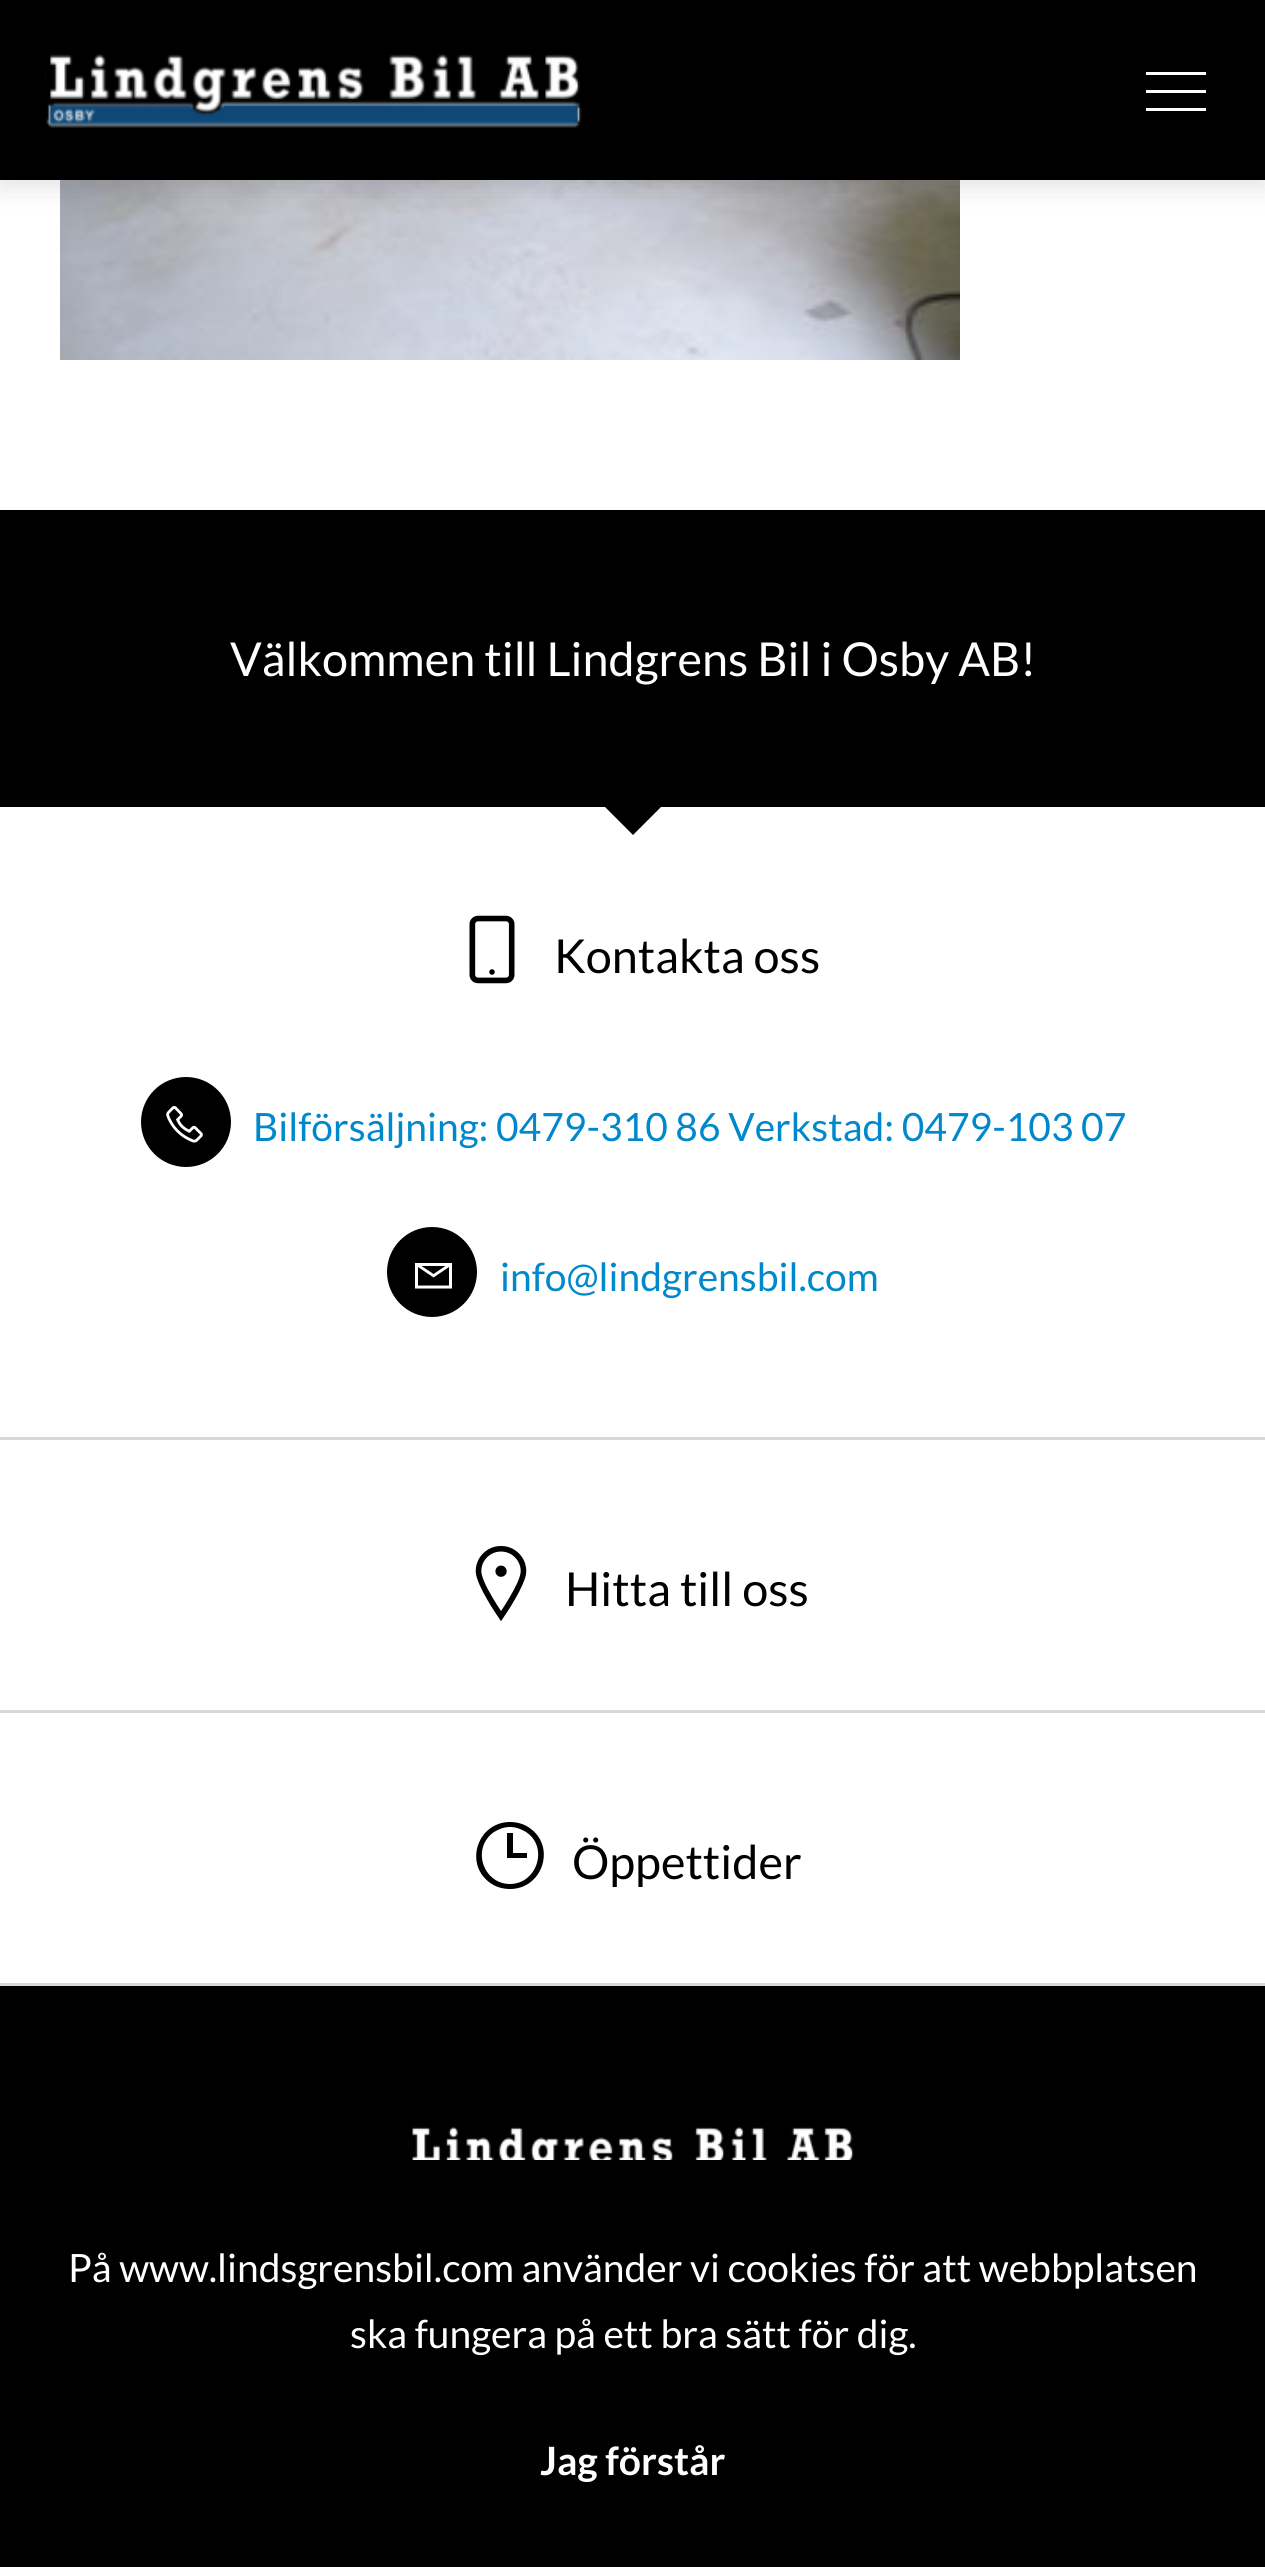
import math
import cairo


def round_path(ctx, x, y, w, h, r):
	ctx.new_sub_path()
	for i, (u, v) in enumerate([(x + w - r, y + h - r), (x + r, y + h - r), (x + r, y + r), (x + w - r, y + r)]):
		ctx.arc(u, v, r, i * math.pi / 2, (i + 1) * math.pi / 2)
	ctx.close_path()

def blur_box(ctx, x, y, w, h, r, blur, alpha):
	ctx.push_group_with_content(cairo.CONTENT_ALPHA)
	ctx.set_operator(cairo.OPERATOR_SOURCE)
	for i in range(15, -16, -2):
		e = blur * i / 6
		if min(w, h) + 2 * e > 0:
			ctx.set_source_rgba(0, 0, 0, alpha * math.erfc((i - 1) / 8.5) / 2)
			round_path(ctx, x - e, y - e, w + 2 * e, h + 2 * e, max(0, min(r + e + blur * .6, min(w, h) / 2 + e)))
			ctx.fill()
	ctx.mask(ctx.pop_group())

def paste(ctx, path, x, y, w, h):
	ctx.save()
	ctx.set_source_surface(cairo.ImageSurface.create_from_png(path), x, y)
	ctx.rectangle(x, y, w, h)
	ctx.fill()
	ctx.restore()

def draw(ctx):
	ctx.set_source_rgb(1, 1, 1)
	ctx.paint()
	paste(ctx, 'media/2.png', 60, 180, 900, 180)
	ctx.set_source_rgb(0, 0, 0)
	blur_box(ctx, 0, 6, 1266, 180, 0, 15, 0.12)
	ctx.set_source_rgb(0, 0, 0)
	ctx.rectangle(0, 0, 1265, 180)
	ctx.fill()
	paste(ctx, 'media/1.png', 45, 54, 537, 74)
	ctx.set_source_rgb(1, 1, 1)
	ctx.rectangle(1146, 72, 60, 3)
	ctx.rectangle(1146, 90, 60, 3)
	ctx.rectangle(1146, 108, 60, 3)
	ctx.fill()
	ctx.set_source_rgb(0, 0, 0)
	ctx.rectangle(0, 510, 1265, 297)
	ctx.fill()
	ctx.select_font_face('Lato')
	ctx.set_font_size(46.75)
	ctx.set_source_rgb(1, 1, 1)
	ctx.move_to(230, 676)
	ctx.show_text('Välkommen till Lindgrens Bil i Osby AB!')
	ctx.set_source_rgb(0, 0, 0)
	ctx.new_path()
	ctx.move_to(633, 835)
	ctx.line_to(591, 793)
	ctx.line_to(633, 750)
	ctx.line_to(675, 793)
	ctx.close_path()
	ctx.fill()
	ctx.set_source_rgb(0.847, 0.847, 0.847)
	ctx.rectangle(0, 1983, 1265, 3)
	ctx.fill()
	ctx.rectangle(0, 1437, 1265, 3)
	ctx.fill()
	paste(ctx, 'media/3.png', 469, 915, 46, 69)
	ctx.set_source_rgb(0, 0, 0)
	ctx.move_to(554, 973)
	ctx.show_text('Kontakta oss')
	ctx.new_path()
	ctx.arc(186, 1122, 42, 0, 2 * math.pi)
	ctx.fill_preserve()
	ctx.set_line_width(6)
	ctx.stroke()
	paste(ctx, 'media/4.png', 166, 1106, 37, 37)
	ctx.set_font_size(39)
	ctx.set_source_rgb(0, 0.533, 0.8)
	ctx.move_to(253, 1141)
	ctx.show_text('Bilförsäljning: 0479-310 86 Verkstad: 0479-103 07')
	ctx.set_source_rgb(0, 0, 0)
	ctx.new_path()
	ctx.arc(432, 1272, 42, 0, 2 * math.pi)
	ctx.fill_preserve()
	ctx.stroke()
	ctx.set_source_rgb(1, 1, 1)
	ctx.new_path()
	ctx.move_to(415, 1263)
	ctx.line_to(452, 1263)
	ctx.line_to(452, 1288.5)
	ctx.line_to(415, 1288.5)
	ctx.close_path()
	ctx.move_to(421.5, 1266)
	ctx.line_to(433.5, 1274)
	ctx.line_to(445.5, 1266)
	ctx.close_path()
	ctx.move_to(418, 1267)
	ctx.line_to(418, 1285.5)
	ctx.line_to(449, 1285.5)
	ctx.line_to(449, 1267)
	ctx.line_to(433.5, 1277.5)
	ctx.close_path()
	ctx.fill()
	ctx.set_source_rgb(0, 0.533, 0.8)
	ctx.move_to(500, 1291)
	ctx.show_text('info@lindgrensbil.com')
	ctx.set_source_rgb(0.847, 0.847, 0.847)
	ctx.rectangle(0, 1710, 1265, 3)
	ctx.fill()
	paste(ctx, 'media/5.png', 475, 1546, 52, 75)
	ctx.set_font_size(46.75)
	ctx.set_source_rgb(0, 0, 0)
	ctx.move_to(565, 1606)
	ctx.show_text('Hitta till oss')
	ctx.new_path()
	ctx.move_to(510, 1822)
	ctx.curve_to(517, 1822, 525, 1824, 531, 1829)
	ctx.curve_to(556, 1848, 542, 1889, 510, 1889)
	ctx.curve_to(503, 1889, 495, 1887, 489, 1882)
	ctx.curve_to(464, 1863, 478, 1822, 510, 1822)
	ctx.close_path()
	ctx.move_to(510, 1827)
	ctx.curve_to(504, 1827, 499, 1829, 494, 1832)
	ctx.curve_to(471, 1848, 483, 1884, 510, 1884)
	ctx.curve_to(537, 1884, 549, 1847, 526, 1832)
	ctx.curve_to(521, 1829, 516, 1827, 510, 1827)
	ctx.close_path()
	ctx.move_to(507, 1833)
	ctx.line_to(513, 1833)
	ctx.line_to(513, 1853)
	ctx.line_to(527, 1853)
	ctx.line_to(527, 1858)
	ctx.line_to(507, 1858)
	ctx.close_path()
	ctx.fill()
	ctx.move_to(572, 1879)
	ctx.show_text('Öppettider')
	ctx.rectangle(0, 1986, 1265, 581)
	ctx.fill()
	paste(ctx, 'media/6.png', 408, 2127, 446, 33)
	ctx.set_font_size(39)
	ctx.set_source_rgb(1, 1, 1)
	ctx.move_to(68, 2282)
	ctx.show_text('På www.lindsgrensbil.com använder vi cookies för att webbplatsen')
	ctx.move_to(350, 2348)
	ctx.show_text('ska fungera på ett bra sätt för dig.')
	ctx.select_font_face('Lato', cairo.FONT_SLANT_NORMAL, cairo.FONT_WEIGHT_BOLD)
	ctx.move_to(540, 2475)
	ctx.show_text('Jag förstår')


surface = cairo.ImageSurface(cairo.FORMAT_RGB24, 1265, 2567)
ctx = cairo.Context(surface)
options = cairo.FontOptions()
options.set_hint_metrics(cairo.HINT_METRICS_OFF)
options.set_hint_style(cairo.HINT_STYLE_NONE)
ctx.set_font_options(options)
ctx.set_miter_limit(4)
draw(ctx)
surface.write_to_png('image.png')
